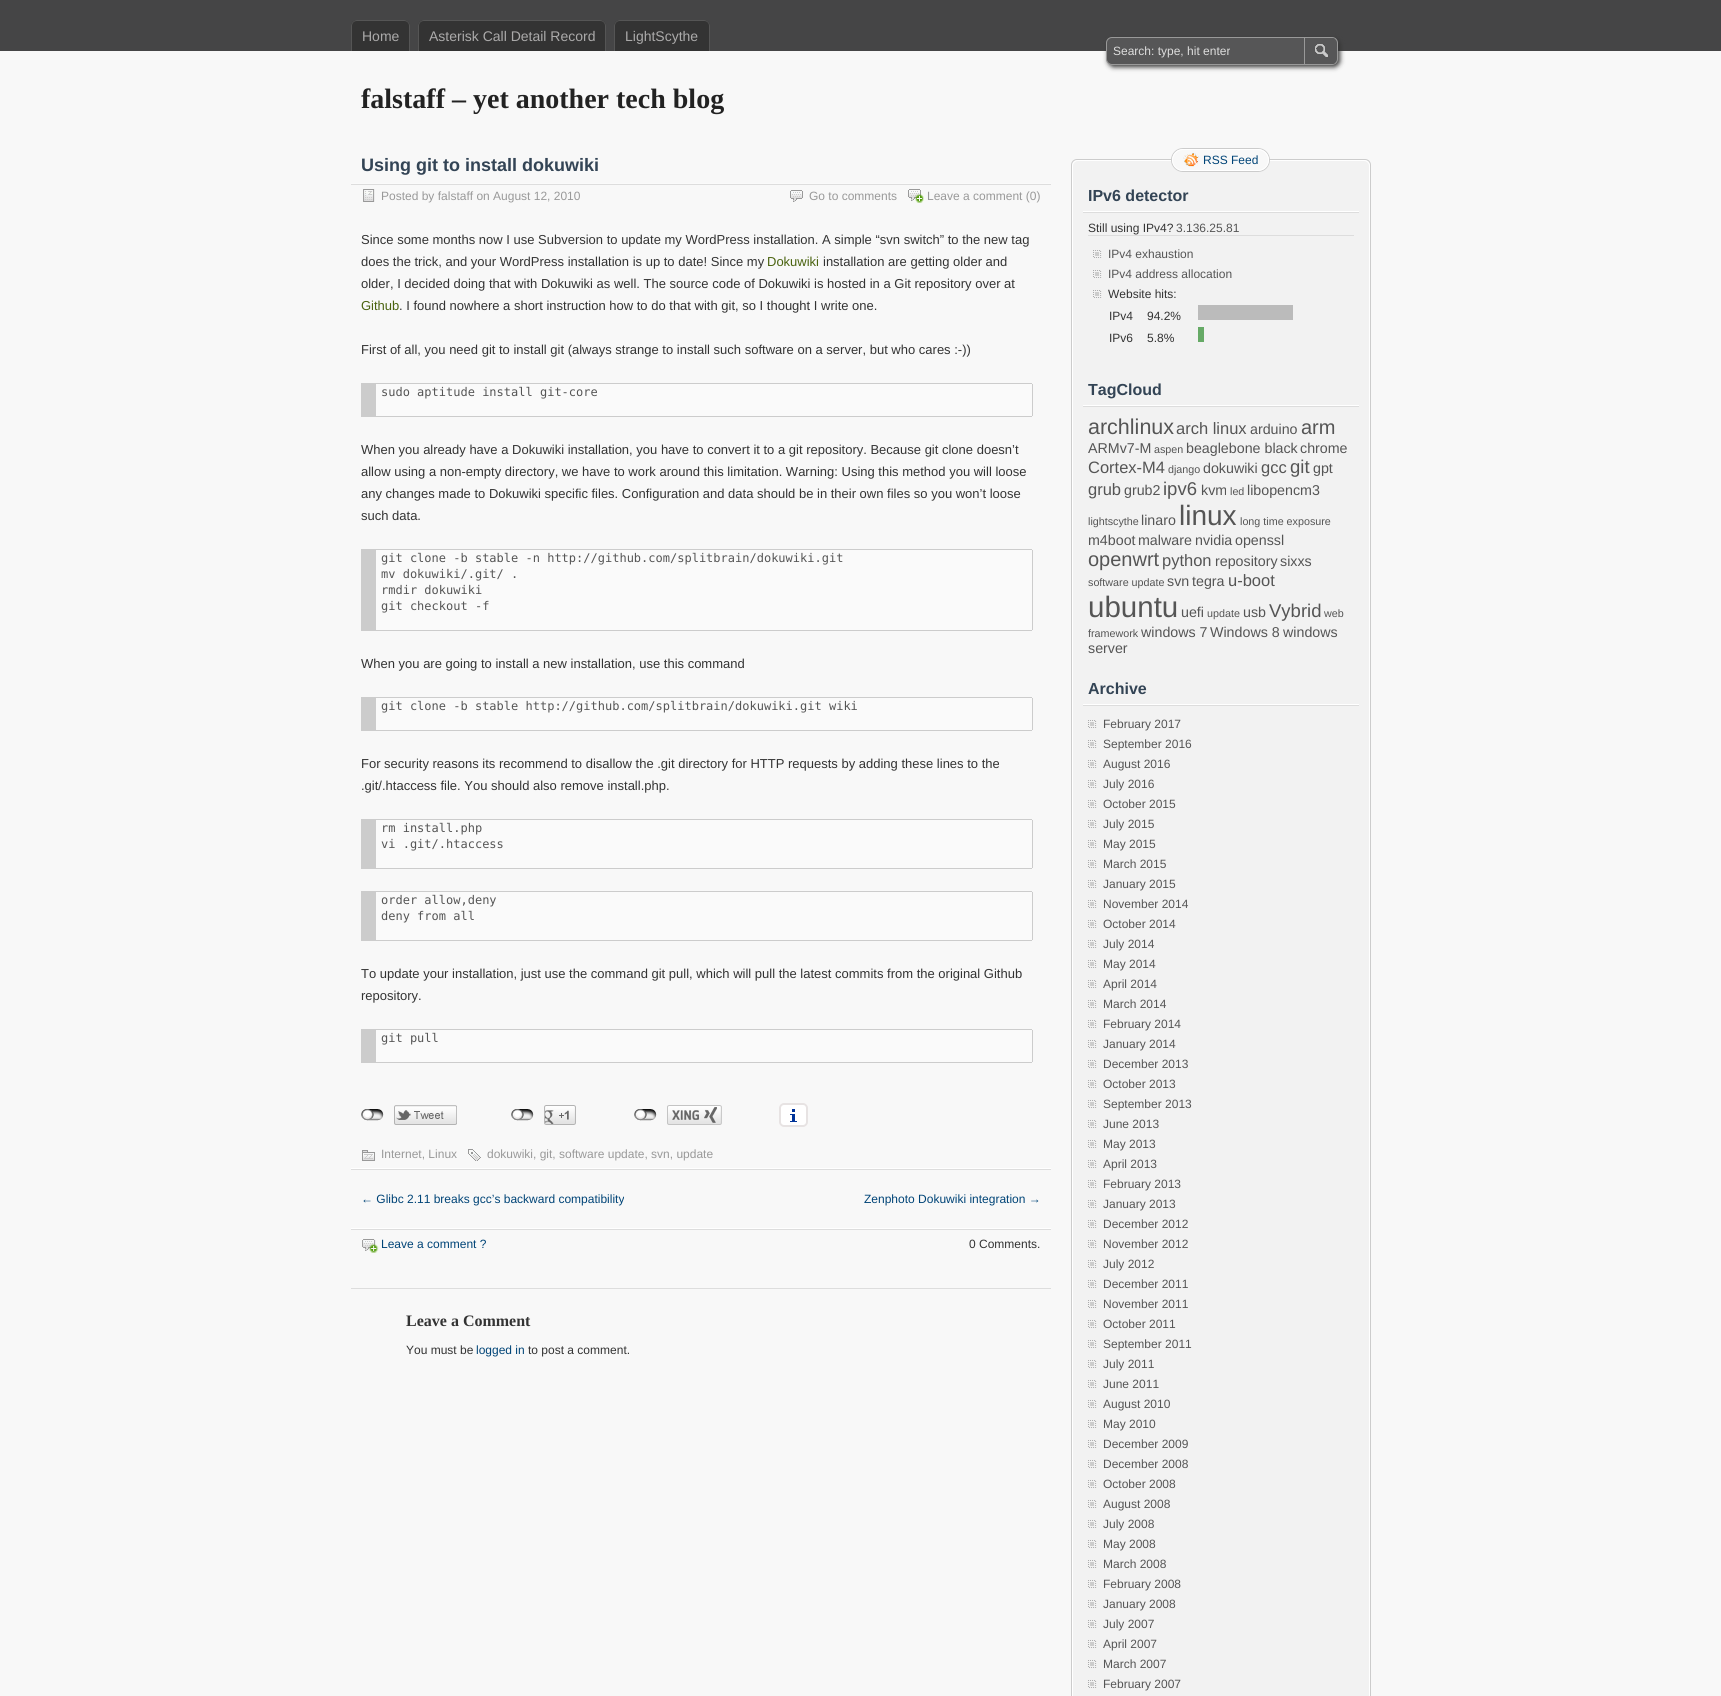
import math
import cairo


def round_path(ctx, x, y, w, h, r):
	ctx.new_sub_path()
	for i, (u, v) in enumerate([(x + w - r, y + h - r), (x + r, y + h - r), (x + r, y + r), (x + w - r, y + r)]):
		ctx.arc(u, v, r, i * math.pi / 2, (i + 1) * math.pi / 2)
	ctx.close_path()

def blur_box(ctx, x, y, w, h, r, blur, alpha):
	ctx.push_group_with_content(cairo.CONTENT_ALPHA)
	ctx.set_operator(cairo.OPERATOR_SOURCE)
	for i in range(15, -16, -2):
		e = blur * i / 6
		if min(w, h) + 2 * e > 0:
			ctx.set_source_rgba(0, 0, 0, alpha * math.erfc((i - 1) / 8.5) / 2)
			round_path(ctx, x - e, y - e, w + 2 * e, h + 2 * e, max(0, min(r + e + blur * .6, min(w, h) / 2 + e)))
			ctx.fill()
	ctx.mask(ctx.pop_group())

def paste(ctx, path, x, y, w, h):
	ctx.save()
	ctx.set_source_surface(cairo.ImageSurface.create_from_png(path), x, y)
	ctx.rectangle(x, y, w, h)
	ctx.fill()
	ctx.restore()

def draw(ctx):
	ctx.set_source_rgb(0.969, 0.969, 0.969)
	ctx.paint()
	ctx.set_source_rgb(0.271, 0.271, 0.275)
	ctx.rectangle(0, 0, 1721, 51)
	ctx.fill()
	ctx.set_source_rgb(0.2, 0.2, 0.2)
	ctx.new_path()
	ctx.move_to(357, 20)
	ctx.line_to(404, 20)
	ctx.curve_to(407.5, 20, 410, 22.5, 410, 26)
	ctx.line_to(410, 51)
	ctx.line_to(351, 51)
	ctx.line_to(351, 26)
	ctx.curve_to(351, 22.5, 353.5, 20, 357, 20)
	ctx.close_path()
	ctx.fill()
	ctx.set_source_rgb(0.333, 0.333, 0.333)
	ctx.set_fill_rule(cairo.FILL_RULE_EVEN_ODD)
	ctx.new_path()
	ctx.move_to(357, 20)
	ctx.line_to(404, 20)
	ctx.curve_to(407, 20, 410, 23, 410, 26)
	ctx.line_to(410, 51)
	ctx.line_to(351, 51)
	ctx.line_to(351, 26)
	ctx.curve_to(351, 23, 354, 20, 357, 20)
	ctx.close_path()
	ctx.move_to(357, 21)
	ctx.line_to(404, 21)
	ctx.curve_to(407, 21, 409, 23, 409, 26)
	ctx.line_to(409, 51)
	ctx.line_to(352, 51)
	ctx.line_to(352, 26)
	ctx.curve_to(352, 23, 354, 21, 357, 21)
	ctx.close_path()
	ctx.fill()
	ctx.select_font_face('Liberation Sans')
	ctx.set_font_size(14)
	ctx.set_source_rgb(0.671, 0.667, 0.667)
	ctx.move_to(362, 41)
	ctx.show_text('Home')
	ctx.set_source_rgb(0.2, 0.2, 0.2)
	ctx.new_path()
	ctx.move_to(424, 20)
	ctx.line_to(600, 20)
	ctx.curve_to(603.5, 20, 606, 22.5, 606, 26)
	ctx.line_to(606, 51)
	ctx.line_to(418, 51)
	ctx.line_to(418, 26)
	ctx.curve_to(418, 22.5, 420.5, 20, 424, 20)
	ctx.close_path()
	ctx.fill()
	ctx.set_source_rgb(0.333, 0.333, 0.333)
	ctx.new_path()
	ctx.move_to(424, 20)
	ctx.line_to(600, 20)
	ctx.curve_to(603, 20, 606, 23, 606, 26)
	ctx.line_to(606, 51)
	ctx.line_to(418, 51)
	ctx.line_to(418, 26)
	ctx.curve_to(418, 23, 421, 20, 424, 20)
	ctx.close_path()
	ctx.move_to(424, 21)
	ctx.line_to(600, 21)
	ctx.curve_to(603, 21, 605, 23, 605, 26)
	ctx.line_to(605, 51)
	ctx.line_to(419, 51)
	ctx.line_to(419, 26)
	ctx.curve_to(419, 23, 421, 21, 424, 21)
	ctx.close_path()
	ctx.fill()
	ctx.set_source_rgb(0.671, 0.667, 0.667)
	ctx.move_to(429, 41)
	ctx.show_text('Asterisk Call Detail Record')
	ctx.set_source_rgb(0.2, 0.2, 0.2)
	ctx.new_path()
	ctx.move_to(620, 20)
	ctx.line_to(704, 20)
	ctx.curve_to(707.5, 20, 710, 22.5, 710, 26)
	ctx.line_to(710, 51)
	ctx.line_to(614, 51)
	ctx.line_to(614, 26)
	ctx.curve_to(614, 22.5, 616.5, 20, 620, 20)
	ctx.close_path()
	ctx.fill()
	ctx.set_source_rgb(0.333, 0.333, 0.333)
	ctx.new_path()
	ctx.move_to(620, 20)
	ctx.line_to(704, 20)
	ctx.curve_to(707, 20, 710, 23, 710, 26)
	ctx.line_to(710, 51)
	ctx.line_to(614, 51)
	ctx.line_to(614, 26)
	ctx.curve_to(614, 23, 617, 20, 620, 20)
	ctx.close_path()
	ctx.move_to(620, 21)
	ctx.line_to(704, 21)
	ctx.curve_to(707, 21, 709, 23, 709, 26)
	ctx.line_to(709, 51)
	ctx.line_to(615, 51)
	ctx.line_to(615, 26)
	ctx.curve_to(615, 23, 617, 21, 620, 21)
	ctx.close_path()
	ctx.fill()
	ctx.set_source_rgb(0.671, 0.667, 0.667)
	ctx.move_to(625, 41)
	ctx.show_text('LightScythe')
	ctx.set_source_rgb(0.2, 0.2, 0.2)
	blur_box(ctx, 1108, 39, 232, 28, 6, 2.5, 1)
	ctx.set_source_rgb(0.337, 0.337, 0.341)
	round_path(ctx, 1106.5, 37.5, 231, 27, 5.5)
	ctx.fill_preserve()
	ctx.set_source_rgb(0.6, 0.6, 0.6)
	ctx.set_line_width(1)
	ctx.stroke()
	ctx.set_font_size(12)
	ctx.set_source_rgb(0.867, 0.867, 0.867)
	ctx.move_to(1113, 55)
	ctx.show_text('Search: type, hit enter')
	ctx.save()
	ctx.set_fill_rule(cairo.FILL_RULE_WINDING)
	round_path(ctx, 1107, 38, 230, 26, 5)
	ctx.clip()
	ctx.set_source_rgb(0.337, 0.337, 0.341)
	ctx.rectangle(1305, 38, 30, 26)
	ctx.fill()
	ctx.restore()
	paste(ctx, 'media/1.png', 1315, 44, 13, 13)
	ctx.set_source_rgb(0.6, 0.6, 0.6)
	ctx.rectangle(1304, 38, 1, 26)
	ctx.fill()
	ctx.select_font_face('Liberation Serif', cairo.FONT_SLANT_NORMAL, cairo.FONT_WEIGHT_BOLD)
	ctx.set_font_size(28)
	ctx.set_source_rgb(0.133, 0.133, 0.133)
	ctx.move_to(361, 108)
	ctx.show_text('falstaff – yet another tech blog')
	ctx.set_source_rgb(0.98, 0.98, 0.98)
	ctx.rectangle(351, 183, 700, 1)
	ctx.fill()
	ctx.select_font_face('Liberation Sans', cairo.FONT_SLANT_NORMAL, cairo.FONT_WEIGHT_BOLD)
	ctx.set_font_size(18)
	ctx.set_source_rgb(0.2, 0.267, 0.333)
	ctx.move_to(361, 171)
	ctx.show_text('Using git to install dokuwiki')
	ctx.set_source_rgb(0.867, 0.867, 0.867)
	ctx.rectangle(351, 184, 700, 1)
	ctx.fill()
	paste(ctx, 'media/2.png', 363, 189, 12, 13)
	ctx.select_font_face('Liberation Sans')
	ctx.set_font_size(12)
	ctx.set_source_rgb(0.6, 0.6, 0.6)
	ctx.move_to(381, 200)
	ctx.show_text('Posted by falstaff on August 12, 2010')
	paste(ctx, 'media/3.png', 790, 190, 13, 12)
	ctx.move_to(809, 200)
	ctx.show_text('Go to comments')
	paste(ctx, 'media/4.png', 908, 189, 16, 14)
	ctx.move_to(927, 200)
	ctx.show_text('Leave a comment (0)')
	ctx.set_font_size(13)
	ctx.set_source_rgb(0.2, 0.2, 0.2)
	ctx.move_to(361, 244)
	ctx.show_text('Since some months now I use Subversion to update my WordPress installation. A simple “svn switch” to the new tag')
	ctx.move_to(361, 266)
	ctx.show_text('does the trick, and your WordPress installation is up to date! Since my')
	ctx.set_source_rgb(0.29, 0.388, 0.059)
	ctx.move_to(767, 266)
	ctx.show_text('Dokuwiki')
	ctx.set_source_rgb(0.2, 0.2, 0.2)
	ctx.move_to(823, 266)
	ctx.show_text('installation are getting older and')
	ctx.move_to(361, 288)
	ctx.show_text('older, I decided doing that with Dokuwiki as well. The source code of Dokuwiki is hosted in a Git repository over at')
	ctx.set_source_rgb(0.29, 0.388, 0.059)
	ctx.move_to(361, 310)
	ctx.show_text('Github')
	ctx.set_source_rgb(0.2, 0.2, 0.2)
	ctx.move_to(399, 310)
	ctx.show_text('. I found nowhere a short instruction how to do that with git, so I thought I write one.')
	ctx.move_to(361, 354)
	ctx.show_text('First of all, you need git to install git (always strange to install such software on a server, but who cares :-))')
	ctx.set_source_rgb(0.98, 0.98, 0.98)
	ctx.rectangle(376, 384, 656, 32)
	ctx.fill()
	ctx.set_source_rgb(0.8, 0.8, 0.8)
	ctx.rectangle(376, 383, 657, 1)
	ctx.rectangle(1032, 383, 1, 34)
	ctx.rectangle(376, 416, 657, 1)
	ctx.rectangle(361, 383, 15, 34)
	ctx.fill()
	ctx.select_font_face('DejaVu Sans Mono')
	ctx.set_font_size(12)
	ctx.set_source_rgb(0.333, 0.333, 0.333)
	ctx.move_to(381, 396)
	ctx.show_text('sudo aptitude install git-core')
	ctx.select_font_face('Liberation Sans')
	ctx.set_font_size(13)
	ctx.set_source_rgb(0.2, 0.2, 0.2)
	for x, y, s in [
		(361, 454, 'When you already have a Dokuwiki installation, you have to convert it to a git repository. Because git clone doesn’t'),
		(361, 476, 'allow using a non-empty directory, we have to work around this limitation. Warning: Using this method you will loose'),
		(361, 498, 'any changes made to Dokuwiki specific files. Configuration and data should be in their own files so you won’t loose'),
		(361, 520, 'such data.'),
	]:
		ctx.move_to(x, y)
		ctx.show_text(s)
	ctx.set_source_rgb(0.98, 0.98, 0.98)
	ctx.rectangle(376, 550, 656, 80)
	ctx.fill()
	ctx.set_source_rgb(0.8, 0.8, 0.8)
	ctx.rectangle(376, 549, 657, 1)
	ctx.rectangle(1032, 549, 1, 82)
	ctx.rectangle(376, 630, 657, 1)
	ctx.rectangle(361, 549, 15, 82)
	ctx.fill()
	ctx.select_font_face('DejaVu Sans Mono')
	ctx.set_font_size(12)
	ctx.set_source_rgb(0.333, 0.333, 0.333)
	for x, y, s in [
		(381, 562, 'git clone -b stable -n http://github.com/splitbrain/dokuwiki.git'),
		(381, 578, 'mv dokuwiki/.git/ .'),
		(381, 594, 'rmdir dokuwiki'),
		(381, 610, 'git checkout -f'),
	]:
		ctx.move_to(x, y)
		ctx.show_text(s)
	ctx.select_font_face('Liberation Sans')
	ctx.set_font_size(13)
	ctx.set_source_rgb(0.2, 0.2, 0.2)
	ctx.move_to(361, 668)
	ctx.show_text('When you are going to install a new installation, use this command')
	ctx.set_source_rgb(0.98, 0.98, 0.98)
	ctx.rectangle(376, 698, 656, 32)
	ctx.fill()
	ctx.set_source_rgb(0.8, 0.8, 0.8)
	ctx.rectangle(376, 697, 657, 1)
	ctx.rectangle(1032, 697, 1, 34)
	ctx.rectangle(376, 730, 657, 1)
	ctx.rectangle(361, 697, 15, 34)
	ctx.fill()
	ctx.select_font_face('DejaVu Sans Mono')
	ctx.set_font_size(12)
	ctx.set_source_rgb(0.333, 0.333, 0.333)
	ctx.move_to(381, 710)
	ctx.show_text('git clone -b stable http://github.com/splitbrain/dokuwiki.git wiki')
	ctx.select_font_face('Liberation Sans')
	ctx.set_font_size(13)
	ctx.set_source_rgb(0.2, 0.2, 0.2)
	ctx.move_to(361, 768)
	ctx.show_text('For security reasons its recommend to disallow the .git directory for HTTP requests by adding these lines to the')
	ctx.move_to(361, 790)
	ctx.show_text('.git/.htaccess file. You should also remove install.php.')
	ctx.set_source_rgb(0.98, 0.98, 0.98)
	ctx.rectangle(376, 820, 656, 48)
	ctx.fill()
	ctx.set_source_rgb(0.8, 0.8, 0.8)
	ctx.rectangle(376, 819, 657, 1)
	ctx.rectangle(1032, 819, 1, 50)
	ctx.rectangle(376, 868, 657, 1)
	ctx.rectangle(361, 819, 15, 50)
	ctx.fill()
	ctx.select_font_face('DejaVu Sans Mono')
	ctx.set_font_size(12)
	ctx.set_source_rgb(0.333, 0.333, 0.333)
	ctx.move_to(381, 832)
	ctx.show_text('rm install.php')
	ctx.move_to(381, 848)
	ctx.show_text('vi .git/.htaccess')
	ctx.set_source_rgb(0.98, 0.98, 0.98)
	ctx.rectangle(376, 892, 656, 48)
	ctx.fill()
	ctx.set_source_rgb(0.8, 0.8, 0.8)
	ctx.rectangle(376, 891, 657, 1)
	ctx.rectangle(1032, 891, 1, 50)
	ctx.rectangle(376, 940, 657, 1)
	ctx.rectangle(361, 891, 15, 50)
	ctx.fill()
	ctx.set_source_rgb(0.333, 0.333, 0.333)
	ctx.move_to(381, 904)
	ctx.show_text('order allow,deny')
	ctx.move_to(381, 920)
	ctx.show_text('deny from all')
	ctx.select_font_face('Liberation Sans')
	ctx.set_font_size(13)
	ctx.set_source_rgb(0.2, 0.2, 0.2)
	ctx.move_to(361, 978)
	ctx.show_text('To update your installation, just use the command git pull, which will pull the latest commits from the original Github')
	ctx.move_to(361, 1000)
	ctx.show_text('repository.')
	ctx.set_source_rgb(0.98, 0.98, 0.98)
	ctx.rectangle(376, 1030, 656, 32)
	ctx.fill()
	ctx.set_source_rgb(0.8, 0.8, 0.8)
	ctx.rectangle(376, 1029, 657, 1)
	ctx.rectangle(1032, 1029, 1, 34)
	ctx.rectangle(376, 1062, 657, 1)
	ctx.rectangle(361, 1029, 15, 34)
	ctx.fill()
	ctx.select_font_face('DejaVu Sans Mono')
	ctx.set_font_size(12)
	ctx.set_source_rgb(0.333, 0.333, 0.333)
	ctx.move_to(381, 1042)
	ctx.show_text('git pull')
	paste(ctx, 'media/5.png', 361, 1109, 23, 12)
	paste(ctx, 'media/6.png', 394, 1105, 63, 20)
	paste(ctx, 'media/5.png', 511, 1109, 23, 12)
	paste(ctx, 'media/7.png', 544, 1105, 32, 20)
	paste(ctx, 'media/5.png', 634, 1109, 23, 12)
	paste(ctx, 'media/8.png', 667, 1105, 55, 20)
	ctx.set_source_rgb(1, 1, 1)
	round_path(ctx, 779, 1103, 29, 24, 5)
	ctx.fill()
	paste(ctx, 'media/9.png', 790, 1109, 7, 13)
	round_path(ctx, 780, 1104, 27, 22, 4)
	ctx.set_source_rgb(0.906, 0.89, 0.89)
	ctx.set_line_width(2)
	ctx.stroke()
	ctx.set_source_rgb(1, 1, 1)
	ctx.rectangle(351, 1168, 700, 1)
	ctx.fill()
	paste(ctx, 'media/10.png', 362, 1150, 13, 11)
	ctx.select_font_face('Liberation Sans')
	ctx.set_source_rgb(0.6, 0.6, 0.6)
	ctx.move_to(381, 1158)
	ctx.show_text('Internet, Linux')
	paste(ctx, 'media/11.png', 468, 1149, 13, 12)
	ctx.move_to(487, 1158)
	ctx.show_text('dokuwiki, git, software update, svn, update')
	ctx.set_source_rgb(0.867, 0.867, 0.867)
	ctx.rectangle(351, 1169, 700, 1)
	ctx.fill()
	ctx.set_source_rgb(1, 1, 1)
	ctx.rectangle(351, 1228, 700, 1)
	ctx.fill()
	ctx.set_source_rgb(0, 0.267, 0.467)
	ctx.move_to(361, 1203)
	ctx.show_text('← Glibc 2.11 breaks gcc’s backward compatibility')
	ctx.move_to(864, 1203)
	ctx.show_text('Zenphoto Dokuwiki integration →')
	ctx.set_source_rgb(0.867, 0.867, 0.867)
	ctx.rectangle(351, 1229, 700, 1)
	ctx.fill()
	paste(ctx, 'media/12.png', 362, 1239, 17, 14)
	ctx.set_source_rgb(0, 0.267, 0.467)
	ctx.move_to(381, 1248)
	ctx.show_text('Leave a comment ?')
	ctx.set_source_rgb(0.2, 0.2, 0.2)
	ctx.move_to(969, 1248)
	ctx.show_text('0 Comments.')
	ctx.set_source_rgb(0.867, 0.867, 0.867)
	ctx.rectangle(351, 1288, 700, 1)
	ctx.fill()
	ctx.select_font_face('Liberation Serif', cairo.FONT_SLANT_NORMAL, cairo.FONT_WEIGHT_BOLD)
	ctx.set_font_size(16)
	ctx.set_source_rgb(0.2, 0.2, 0.2)
	ctx.move_to(406, 1326)
	ctx.show_text('Leave a Comment')
	ctx.select_font_face('Liberation Sans')
	ctx.set_font_size(12)
	ctx.move_to(406, 1354)
	ctx.show_text('You must be')
	ctx.set_source_rgb(0, 0.267, 0.467)
	ctx.move_to(476, 1354)
	ctx.show_text('logged in')
	ctx.set_source_rgb(0.2, 0.2, 0.2)
	ctx.move_to(528, 1354)
	ctx.show_text('to post a comment.')
	ctx.set_source_rgb(0.949, 0.949, 0.949)
	round_path(ctx, 1071.5, 159.5, 299, 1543, 5.5)
	ctx.fill_preserve()
	ctx.set_source_rgb(0.8, 0.8, 0.8)
	ctx.set_line_width(1)
	ctx.stroke()
	round_path(ctx, 1072.5, 160.5, 297, 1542, 5.5)
	ctx.set_source_rgb(1, 1, 1)
	ctx.stroke()
	round_path(ctx, 1171.5, 148.5, 98, 23, 11.5)
	ctx.set_source_rgb(0.8, 0.8, 0.8)
	ctx.stroke()
	ctx.set_source_rgb(0.969, 0.969, 0.969)
	round_path(ctx, 1172.5, 149.5, 96, 21, 10.5)
	ctx.fill_preserve()
	ctx.set_source_rgb(1, 1, 1)
	ctx.stroke()
	paste(ctx, 'media/13.png', 1183, 153, 16, 14)
	ctx.set_source_rgb(0, 0.267, 0.467)
	ctx.move_to(1203, 164)
	ctx.show_text('RSS Feed')
	ctx.set_source_rgb(1, 1, 1)
	ctx.rectangle(1083, 211, 276, 1)
	ctx.fill()
	ctx.select_font_face('Liberation Sans', cairo.FONT_SLANT_NORMAL, cairo.FONT_WEIGHT_BOLD)
	ctx.set_font_size(16)
	ctx.set_source_rgb(0.2, 0.267, 0.333)
	ctx.move_to(1088, 201)
	ctx.show_text('IPv6 detector')
	ctx.set_source_rgb(0.867, 0.867, 0.867)
	ctx.rectangle(1083, 212, 276, 1)
	ctx.fill()
	ctx.select_font_face('Liberation Sans')
	ctx.set_font_size(12)
	ctx.set_source_rgb(0.2, 0.2, 0.2)
	ctx.move_to(1088, 232)
	ctx.show_text('Still using IPv4?')
	ctx.set_source_rgb(0.333, 0.333, 0.333)
	ctx.move_to(1176, 232)
	ctx.show_text('3.136.25.81')
	ctx.set_source_rgb(0.867, 0.867, 0.867)
	ctx.rectangle(1088, 235, 266, 1)
	ctx.fill()
	paste(ctx, 'media/14.png', 1093, 250, 9, 8)
	ctx.set_source_rgb(0.333, 0.333, 0.333)
	ctx.move_to(1108, 258)
	ctx.show_text('IPv4 exhaustion')
	paste(ctx, 'media/14.png', 1093, 270, 9, 8)
	ctx.move_to(1108, 278)
	ctx.show_text('IPv4 address allocation')
	paste(ctx, 'media/14.png', 1093, 290, 9, 8)
	ctx.set_source_rgb(0.2, 0.2, 0.2)
	for x, y, s in [
		(1108, 298, 'Website hits:'),
		(1109, 320, 'IPv4'),
		(1147, 320, '94.2%'),
	]:
		ctx.move_to(x, y)
		ctx.show_text(s)
	ctx.set_source_rgb(0.733, 0.733, 0.733)
	ctx.rectangle(1198, 305, 95, 15)
	ctx.fill()
	ctx.set_source_rgb(0.2, 0.2, 0.2)
	ctx.move_to(1109, 342)
	ctx.show_text('IPv6')
	ctx.move_to(1147, 342)
	ctx.show_text('5.8%')
	ctx.set_source_rgb(0.4, 0.667, 0.4)
	ctx.rectangle(1198, 327, 6, 15)
	ctx.fill()
	ctx.set_source_rgb(1, 1, 1)
	ctx.rectangle(1083, 405, 276, 1)
	ctx.fill()
	ctx.select_font_face('Liberation Sans', cairo.FONT_SLANT_NORMAL, cairo.FONT_WEIGHT_BOLD)
	ctx.set_font_size(16)
	ctx.set_source_rgb(0.2, 0.267, 0.333)
	ctx.move_to(1088, 395)
	ctx.show_text('TagCloud')
	ctx.set_source_rgb(0.867, 0.867, 0.867)
	ctx.rectangle(1083, 406, 276, 1)
	ctx.fill()
	ctx.select_font_face('Liberation Sans')
	ctx.set_font_size(21.5)
	ctx.set_source_rgb(0.333, 0.333, 0.333)
	ctx.move_to(1088, 434)
	ctx.show_text('archlinux')
	ctx.set_font_size(16.5)
	ctx.move_to(1176, 434)
	ctx.show_text('arch linux')
	ctx.set_font_size(14.25)
	ctx.move_to(1250, 434)
	ctx.show_text('arduino')
	ctx.set_font_size(20)
	ctx.move_to(1301, 434)
	ctx.show_text('arm')
	ctx.set_font_size(14.25)
	ctx.move_to(1088, 453)
	ctx.show_text('ARMv7-M')
	ctx.set_font_size(10.75)
	ctx.move_to(1154, 453)
	ctx.show_text('aspen')
	ctx.set_font_size(14.25)
	ctx.move_to(1186, 453)
	ctx.show_text('beaglebone black')
	ctx.move_to(1300, 453)
	ctx.show_text('chrome')
	ctx.set_font_size(16.5)
	ctx.move_to(1088, 473)
	ctx.show_text('Cortex-M4')
	ctx.set_font_size(10.75)
	ctx.move_to(1168, 473)
	ctx.show_text('django')
	ctx.set_font_size(14.25)
	ctx.move_to(1203, 473)
	ctx.show_text('dokuwiki')
	ctx.set_font_size(16.5)
	ctx.move_to(1261, 473)
	ctx.show_text('gcc')
	ctx.set_font_size(18.5)
	ctx.move_to(1290, 473)
	ctx.show_text('git')
	ctx.set_font_size(14.25)
	ctx.move_to(1313, 473)
	ctx.show_text('gpt')
	ctx.set_font_size(16.5)
	ctx.move_to(1088, 495)
	ctx.show_text('grub')
	ctx.set_font_size(14.25)
	ctx.move_to(1124, 495)
	ctx.show_text('grub2')
	ctx.set_font_size(18.5)
	ctx.move_to(1163, 495)
	ctx.show_text('ipv6')
	ctx.set_font_size(14.25)
	ctx.move_to(1201, 495)
	ctx.show_text('kvm')
	ctx.set_font_size(10.75)
	ctx.move_to(1230, 495)
	ctx.show_text('led')
	ctx.set_font_size(14.25)
	ctx.move_to(1247, 495)
	ctx.show_text('libopencm3')
	ctx.set_font_size(10.75)
	ctx.move_to(1088, 525)
	ctx.show_text('lightscythe')
	ctx.set_font_size(14.25)
	ctx.move_to(1141, 525)
	ctx.show_text('linaro')
	ctx.set_font_size(28)
	ctx.move_to(1179, 525)
	ctx.show_text('linux')
	ctx.set_font_size(10.75)
	ctx.move_to(1240, 525)
	ctx.show_text('long time exposure')
	ctx.set_font_size(14.25)
	for x, y, s in [
		(1088, 545, 'm4boot'),
		(1138, 545, 'malware'),
		(1195, 545, 'nvidia'),
		(1235, 545, 'openssl'),
	]:
		ctx.move_to(x, y)
		ctx.show_text(s)
	ctx.set_font_size(20)
	ctx.move_to(1088, 566)
	ctx.show_text('openwrt')
	ctx.set_font_size(16.5)
	ctx.move_to(1162, 566)
	ctx.show_text('python')
	ctx.set_font_size(14.25)
	ctx.move_to(1215, 566)
	ctx.show_text('repository')
	ctx.move_to(1280, 566)
	ctx.show_text('sixxs')
	ctx.set_font_size(10.75)
	ctx.move_to(1088, 586)
	ctx.show_text('software update')
	ctx.set_font_size(14.25)
	ctx.move_to(1167, 586)
	ctx.show_text('svn')
	ctx.move_to(1192, 586)
	ctx.show_text('tegra')
	ctx.set_font_size(16.5)
	ctx.move_to(1228, 586)
	ctx.show_text('u-boot')
	ctx.set_font_size(29.5)
	ctx.move_to(1088, 617)
	ctx.show_text('ubuntu')
	ctx.set_font_size(14.25)
	ctx.move_to(1181, 617)
	ctx.show_text('uefi')
	ctx.set_font_size(10.75)
	ctx.move_to(1207, 617)
	ctx.show_text('update')
	ctx.set_font_size(14.25)
	ctx.move_to(1243, 617)
	ctx.show_text('usb')
	ctx.set_font_size(18.5)
	ctx.move_to(1269, 617)
	ctx.show_text('Vybrid')
	ctx.set_font_size(10.75)
	ctx.move_to(1324, 617)
	ctx.show_text('web')
	ctx.move_to(1088, 637)
	ctx.show_text('framework')
	ctx.set_font_size(14.25)
	for x, y, s in [
		(1141, 637, 'windows 7'),
		(1210, 637, 'Windows 8'),
		(1283, 637, 'windows'),
		(1088, 653, 'server'),
	]:
		ctx.move_to(x, y)
		ctx.show_text(s)
	ctx.set_source_rgb(1, 1, 1)
	ctx.rectangle(1083, 704, 276, 1)
	ctx.fill()
	ctx.select_font_face('Liberation Sans', cairo.FONT_SLANT_NORMAL, cairo.FONT_WEIGHT_BOLD)
	ctx.set_font_size(16)
	ctx.set_source_rgb(0.2, 0.267, 0.333)
	ctx.move_to(1088, 694)
	ctx.show_text('Archive')
	ctx.set_source_rgb(0.867, 0.867, 0.867)
	ctx.rectangle(1083, 705, 276, 1)
	ctx.fill()
	paste(ctx, 'media/14.png', 1088, 720, 9, 8)
	ctx.select_font_face('Liberation Sans')
	ctx.set_font_size(12)
	ctx.set_source_rgb(0.333, 0.333, 0.333)
	ctx.move_to(1103, 728)
	ctx.show_text('February 2017')
	paste(ctx, 'media/14.png', 1088, 740, 9, 8)
	ctx.move_to(1103, 748)
	ctx.show_text('September 2016')
	paste(ctx, 'media/14.png', 1088, 760, 9, 8)
	ctx.move_to(1103, 768)
	ctx.show_text('August 2016')
	paste(ctx, 'media/14.png', 1088, 780, 9, 8)
	ctx.move_to(1103, 788)
	ctx.show_text('July 2016')
	paste(ctx, 'media/14.png', 1088, 800, 9, 8)
	ctx.move_to(1103, 808)
	ctx.show_text('October 2015')
	paste(ctx, 'media/14.png', 1088, 820, 9, 8)
	ctx.move_to(1103, 828)
	ctx.show_text('July 2015')
	paste(ctx, 'media/14.png', 1088, 840, 9, 8)
	ctx.move_to(1103, 848)
	ctx.show_text('May 2015')
	paste(ctx, 'media/14.png', 1088, 860, 9, 8)
	ctx.move_to(1103, 868)
	ctx.show_text('March 2015')
	paste(ctx, 'media/14.png', 1088, 880, 9, 8)
	ctx.move_to(1103, 888)
	ctx.show_text('January 2015')
	paste(ctx, 'media/14.png', 1088, 900, 9, 8)
	ctx.move_to(1103, 908)
	ctx.show_text('November 2014')
	paste(ctx, 'media/14.png', 1088, 920, 9, 8)
	ctx.move_to(1103, 928)
	ctx.show_text('October 2014')
	paste(ctx, 'media/14.png', 1088, 940, 9, 8)
	ctx.move_to(1103, 948)
	ctx.show_text('July 2014')
	paste(ctx, 'media/14.png', 1088, 960, 9, 8)
	ctx.move_to(1103, 968)
	ctx.show_text('May 2014')
	paste(ctx, 'media/14.png', 1088, 980, 9, 8)
	ctx.move_to(1103, 988)
	ctx.show_text('April 2014')
	paste(ctx, 'media/14.png', 1088, 1000, 9, 8)
	ctx.move_to(1103, 1008)
	ctx.show_text('March 2014')
	paste(ctx, 'media/14.png', 1088, 1020, 9, 8)
	ctx.move_to(1103, 1028)
	ctx.show_text('February 2014')
	paste(ctx, 'media/14.png', 1088, 1040, 9, 8)
	ctx.move_to(1103, 1048)
	ctx.show_text('January 2014')
	paste(ctx, 'media/14.png', 1088, 1060, 9, 8)
	ctx.move_to(1103, 1068)
	ctx.show_text('December 2013')
	paste(ctx, 'media/14.png', 1088, 1080, 9, 8)
	ctx.move_to(1103, 1088)
	ctx.show_text('October 2013')
	paste(ctx, 'media/14.png', 1088, 1100, 9, 8)
	ctx.move_to(1103, 1108)
	ctx.show_text('September 2013')
	paste(ctx, 'media/14.png', 1088, 1120, 9, 8)
	ctx.move_to(1103, 1128)
	ctx.show_text('June 2013')
	paste(ctx, 'media/14.png', 1088, 1140, 9, 8)
	ctx.move_to(1103, 1148)
	ctx.show_text('May 2013')
	paste(ctx, 'media/14.png', 1088, 1160, 9, 8)
	ctx.move_to(1103, 1168)
	ctx.show_text('April 2013')
	paste(ctx, 'media/14.png', 1088, 1180, 9, 8)
	ctx.move_to(1103, 1188)
	ctx.show_text('February 2013')
	paste(ctx, 'media/14.png', 1088, 1200, 9, 8)
	ctx.move_to(1103, 1208)
	ctx.show_text('January 2013')
	paste(ctx, 'media/14.png', 1088, 1220, 9, 8)
	ctx.move_to(1103, 1228)
	ctx.show_text('December 2012')
	paste(ctx, 'media/14.png', 1088, 1240, 9, 8)
	ctx.move_to(1103, 1248)
	ctx.show_text('November 2012')
	paste(ctx, 'media/14.png', 1088, 1260, 9, 8)
	ctx.move_to(1103, 1268)
	ctx.show_text('July 2012')
	paste(ctx, 'media/14.png', 1088, 1280, 9, 8)
	ctx.move_to(1103, 1288)
	ctx.show_text('December 2011')
	paste(ctx, 'media/14.png', 1088, 1300, 9, 8)
	ctx.move_to(1103, 1308)
	ctx.show_text('November 2011')
	paste(ctx, 'media/14.png', 1088, 1320, 9, 8)
	ctx.move_to(1103, 1328)
	ctx.show_text('October 2011')
	paste(ctx, 'media/14.png', 1088, 1340, 9, 8)
	ctx.move_to(1103, 1348)
	ctx.show_text('September 2011')
	paste(ctx, 'media/14.png', 1088, 1360, 9, 8)
	ctx.move_to(1103, 1368)
	ctx.show_text('July 2011')
	paste(ctx, 'media/14.png', 1088, 1380, 9, 8)
	ctx.move_to(1103, 1388)
	ctx.show_text('June 2011')
	paste(ctx, 'media/14.png', 1088, 1400, 9, 8)
	ctx.move_to(1103, 1408)
	ctx.show_text('August 2010')
	paste(ctx, 'media/14.png', 1088, 1420, 9, 8)
	ctx.move_to(1103, 1428)
	ctx.show_text('May 2010')
	paste(ctx, 'media/14.png', 1088, 1440, 9, 8)
	ctx.move_to(1103, 1448)
	ctx.show_text('December 2009')
	paste(ctx, 'media/14.png', 1088, 1460, 9, 8)
	ctx.move_to(1103, 1468)
	ctx.show_text('December 2008')
	paste(ctx, 'media/14.png', 1088, 1480, 9, 8)
	ctx.move_to(1103, 1488)
	ctx.show_text('October 2008')
	paste(ctx, 'media/14.png', 1088, 1500, 9, 8)
	ctx.move_to(1103, 1508)
	ctx.show_text('August 2008')
	paste(ctx, 'media/14.png', 1088, 1520, 9, 8)
	ctx.move_to(1103, 1528)
	ctx.show_text('July 2008')
	paste(ctx, 'media/14.png', 1088, 1540, 9, 8)
	ctx.move_to(1103, 1548)
	ctx.show_text('May 2008')
	paste(ctx, 'media/14.png', 1088, 1560, 9, 8)
	ctx.move_to(1103, 1568)
	ctx.show_text('March 2008')
	paste(ctx, 'media/14.png', 1088, 1580, 9, 8)
	ctx.move_to(1103, 1588)
	ctx.show_text('February 2008')
	paste(ctx, 'media/14.png', 1088, 1600, 9, 8)
	ctx.move_to(1103, 1608)
	ctx.show_text('January 2008')
	paste(ctx, 'media/14.png', 1088, 1620, 9, 8)
	ctx.move_to(1103, 1628)
	ctx.show_text('July 2007')
	paste(ctx, 'media/14.png', 1088, 1640, 9, 8)
	ctx.move_to(1103, 1648)
	ctx.show_text('April 2007')
	paste(ctx, 'media/14.png', 1088, 1660, 9, 8)
	ctx.move_to(1103, 1668)
	ctx.show_text('March 2007')
	paste(ctx, 'media/14.png', 1088, 1680, 9, 8)
	ctx.move_to(1103, 1688)
	ctx.show_text('February 2007')


surface = cairo.ImageSurface(cairo.FORMAT_RGB24, 1721, 1696)
ctx = cairo.Context(surface)
options = cairo.FontOptions()
options.set_hint_metrics(cairo.HINT_METRICS_OFF)
options.set_hint_style(cairo.HINT_STYLE_NONE)
ctx.set_font_options(options)
ctx.set_miter_limit(4)
draw(ctx)
surface.write_to_png('image.png')
